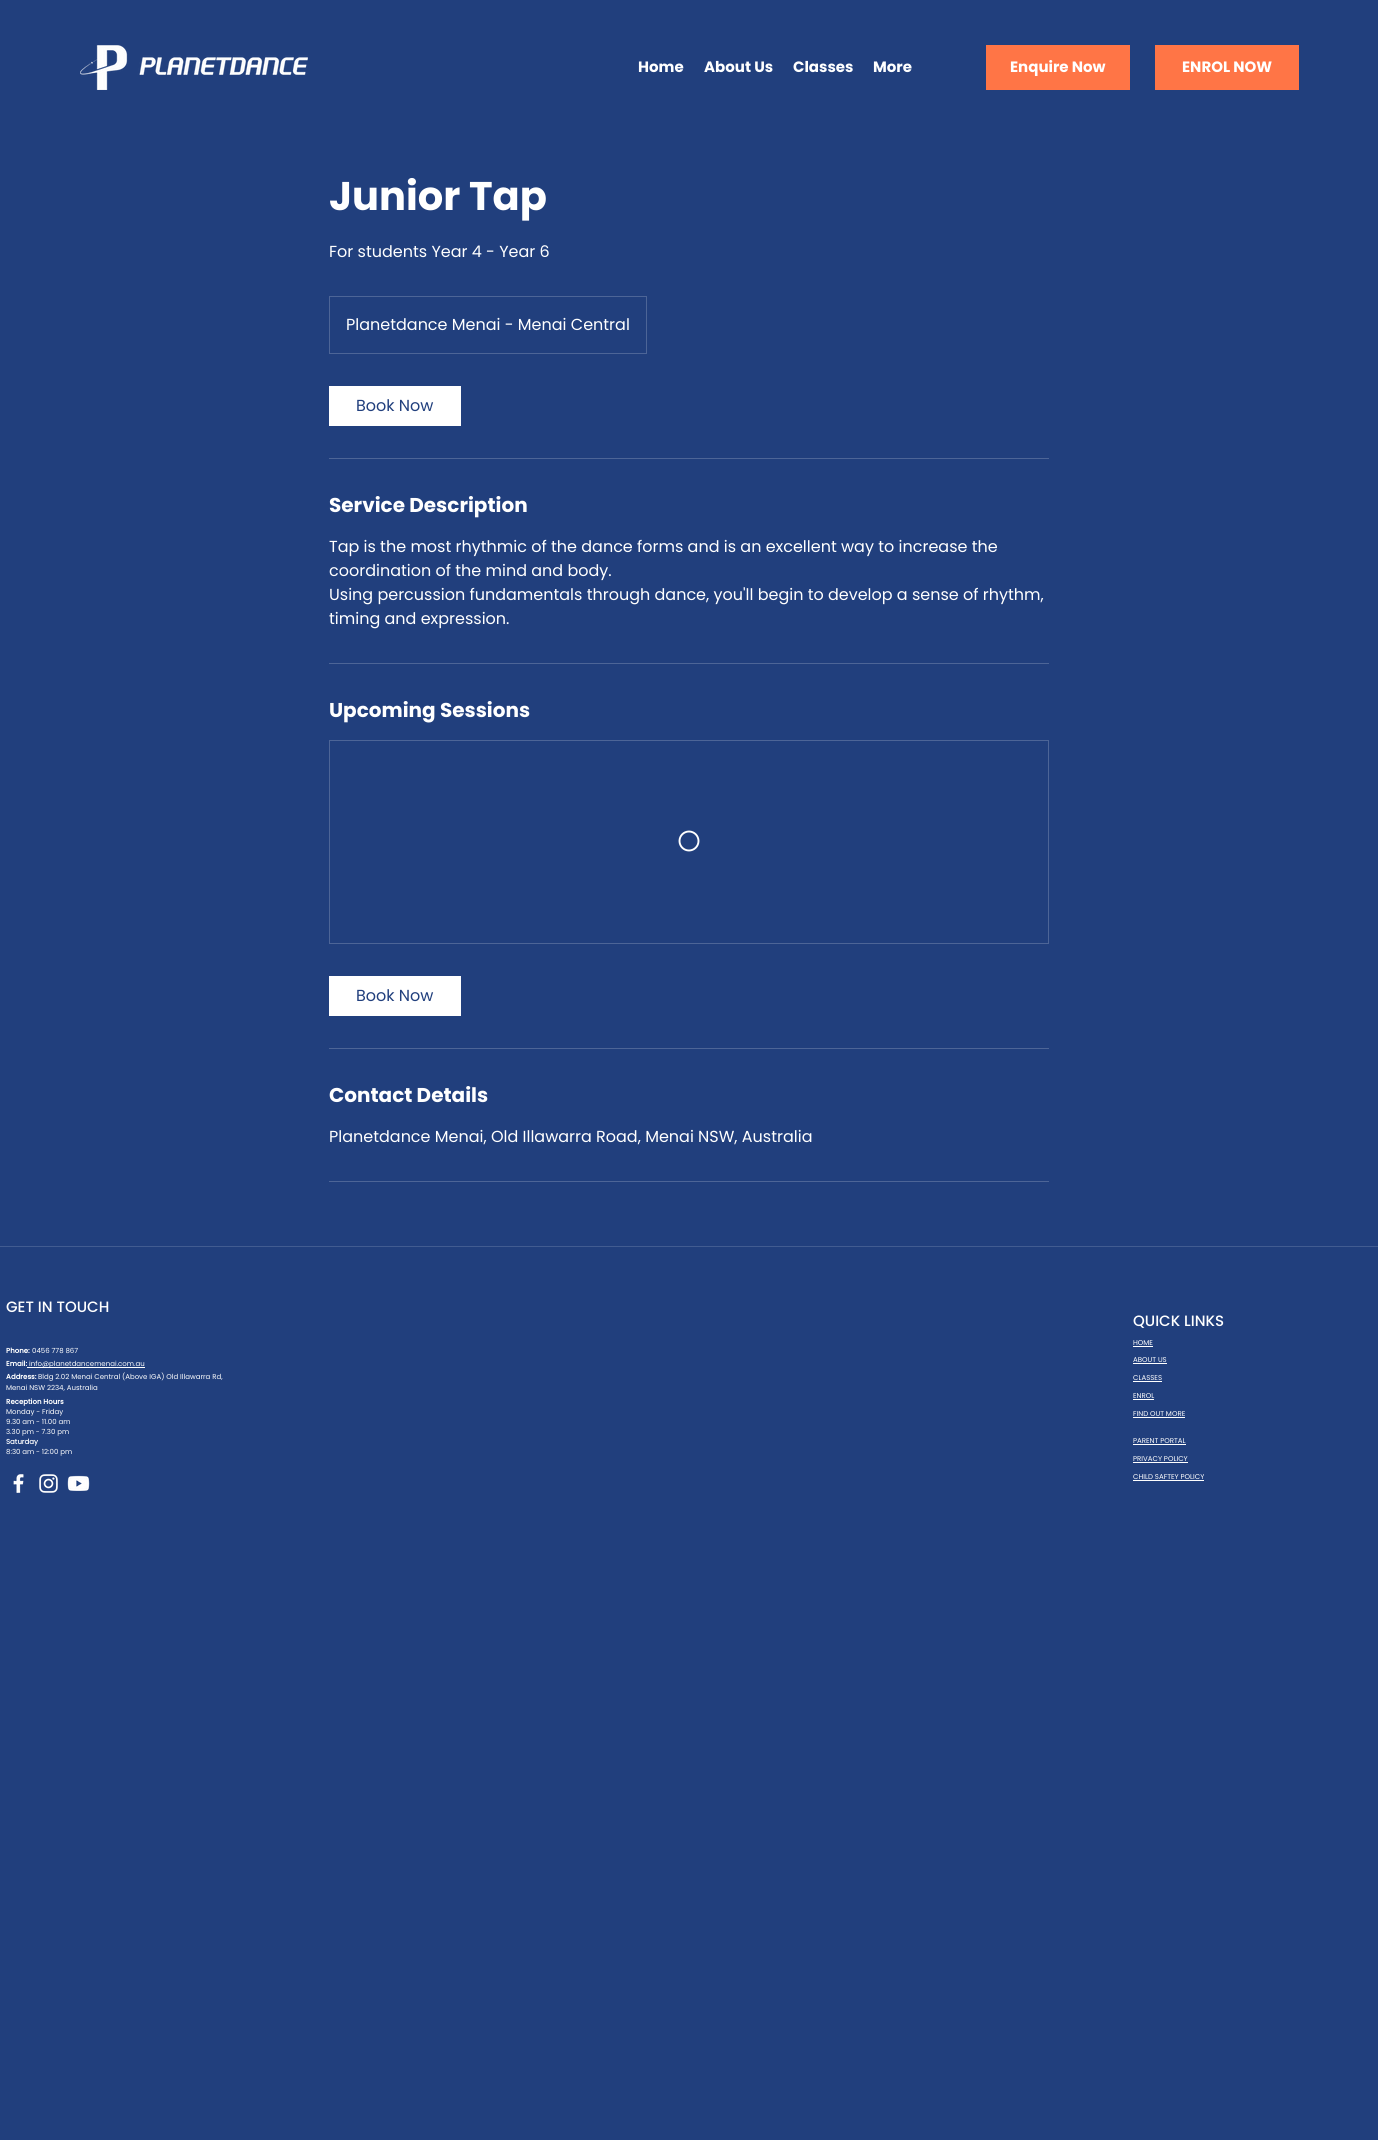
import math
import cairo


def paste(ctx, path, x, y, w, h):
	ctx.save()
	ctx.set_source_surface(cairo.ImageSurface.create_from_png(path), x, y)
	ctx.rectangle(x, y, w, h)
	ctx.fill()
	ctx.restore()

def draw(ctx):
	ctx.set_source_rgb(0.129, 0.247, 0.49)
	ctx.paint()
	paste(ctx, 'media/1.png', 80, 45, 228, 45)
	ctx.select_font_face('Poppins', cairo.FONT_SLANT_NORMAL, cairo.FONT_WEIGHT_BOLD)
	ctx.set_font_size(15)
	ctx.set_source_rgb(1, 1, 1)
	for x, y, s in [
		(638, 72, 'Home'),
		(704, 72, 'About Us'),
		(793, 72, 'Classes'),
		(873, 72, 'More'),
	]:
		ctx.move_to(x, y)
		ctx.show_text(s)
	ctx.set_source_rgb(1, 0.459, 0.275)
	ctx.rectangle(986, 45, 144, 45)
	ctx.fill()
	ctx.set_source_rgb(1, 1, 1)
	ctx.move_to(1010, 72)
	ctx.show_text('Enquire Now')
	ctx.set_source_rgb(1, 0.459, 0.275)
	ctx.rectangle(1155, 45, 144, 45)
	ctx.fill()
	ctx.set_source_rgb(1, 1, 1)
	ctx.move_to(1182, 72)
	ctx.show_text('ENROL NOW')
	ctx.set_font_size(40)
	ctx.move_to(329, 210)
	ctx.show_text('Junior Tap')
	ctx.select_font_face('Poppins')
	ctx.set_font_size(16)
	ctx.move_to(329, 257)
	ctx.show_text('For students Year 4 - Year 6')
	ctx.rectangle(329.5, 296.5, 317, 57)
	ctx.set_source_rgb(0.302, 0.396, 0.592)
	ctx.set_line_width(1)
	ctx.stroke()
	ctx.set_source_rgb(1, 1, 1)
	ctx.move_to(346, 330)
	ctx.show_text('Planetdance Menai - Menai Central')
	ctx.rectangle(329, 386, 132, 40)
	ctx.fill()
	ctx.set_source_rgb(0.129, 0.247, 0.49)
	ctx.move_to(356, 411)
	ctx.show_text('Book Now')
	ctx.set_source_rgb(0.302, 0.396, 0.592)
	ctx.rectangle(329, 458, 720, 1)
	ctx.fill()
	ctx.select_font_face('Poppins', cairo.FONT_SLANT_NORMAL, cairo.FONT_WEIGHT_BOLD)
	ctx.set_font_size(20)
	ctx.set_source_rgb(1, 1, 1)
	ctx.move_to(329, 512)
	ctx.show_text('Service Description')
	ctx.select_font_face('Poppins')
	ctx.set_font_size(16)
	for x, y, s in [
		(329, 552, 'Tap is the most rhythmic of the dance forms and is an excellent way to increase the'),
		(329, 576, 'coordination of the mind and body.'),
		(329, 600, 'Using percussion fundamentals through dance, you\'ll begin to develop a sense of rhythm,'),
		(329, 624, 'timing and expression.'),
	]:
		ctx.move_to(x, y)
		ctx.show_text(s)
	ctx.set_source_rgb(0.302, 0.396, 0.592)
	ctx.rectangle(329, 663, 720, 1)
	ctx.fill()
	ctx.select_font_face('Poppins', cairo.FONT_SLANT_NORMAL, cairo.FONT_WEIGHT_BOLD)
	ctx.set_font_size(20)
	ctx.set_source_rgb(1, 1, 1)
	ctx.move_to(329, 717)
	ctx.show_text('Upcoming Sessions')
	ctx.rectangle(329.5, 740.5, 719, 203)
	ctx.set_source_rgb(0.302, 0.396, 0.592)
	ctx.stroke()
	ctx.arc(689, 841, 9.5, 0, 2 * math.pi)
	ctx.set_source_rgb(1, 1, 1)
	ctx.set_line_width(1.9)
	ctx.stroke()
	ctx.rectangle(329, 976, 132, 40)
	ctx.fill()
	ctx.select_font_face('Poppins')
	ctx.set_font_size(16)
	ctx.set_source_rgb(0.129, 0.247, 0.49)
	ctx.move_to(356, 1001)
	ctx.show_text('Book Now')
	ctx.set_source_rgb(0.302, 0.396, 0.592)
	ctx.rectangle(329, 1048, 720, 1)
	ctx.fill()
	ctx.select_font_face('Poppins', cairo.FONT_SLANT_NORMAL, cairo.FONT_WEIGHT_BOLD)
	ctx.set_font_size(20)
	ctx.set_source_rgb(1, 1, 1)
	ctx.move_to(329, 1102)
	ctx.show_text('Contact Details')
	ctx.select_font_face('Poppins')
	ctx.set_font_size(16)
	ctx.move_to(329, 1142)
	ctx.show_text('Planetdance Menai, Old Illawarra Road, Menai NSW, Australia')
	ctx.set_source_rgb(0.302, 0.396, 0.592)
	ctx.rectangle(329, 1181, 720, 1)
	ctx.fill()
	ctx.set_source_rgb(0.259, 0.361, 0.569)
	ctx.rectangle(0, 1246, 1378, 1)
	ctx.fill()
	ctx.select_font_face('Poppins Medium')
	ctx.set_font_size(15)
	ctx.set_source_rgb(1, 1, 1)
	ctx.move_to(6, 1312)
	ctx.show_text('GET IN TOUCH')
	ctx.move_to(1133, 1326)
	ctx.show_text('QUICK LINKS')
	ctx.select_font_face('Poppins')
	ctx.set_font_size(7)
	ctx.move_to(1133, 1345)
	ctx.show_text('HOME')
	ctx.rectangle(1133, 1346, 20, 1)
	ctx.fill()
	ctx.select_font_face('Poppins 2', cairo.FONT_SLANT_NORMAL, cairo.FONT_WEIGHT_BOLD)
	ctx.move_to(6, 1353)
	ctx.show_text('Phone:')
	ctx.select_font_face('Poppins')
	ctx.move_to(32, 1353)
	ctx.show_text('0456 778 867')
	ctx.select_font_face('Poppins 2', cairo.FONT_SLANT_NORMAL, cairo.FONT_WEIGHT_BOLD)
	ctx.move_to(6, 1366)
	ctx.show_text('Email:')
	ctx.rectangle(27, 1367, 118, 1)
	ctx.fill()
	ctx.select_font_face('Poppins')
	ctx.move_to(29, 1366)
	ctx.show_text('info@planetdancemenai.com.au')
	ctx.move_to(1133, 1362)
	ctx.show_text('ABOUT US')
	ctx.rectangle(1133, 1363, 34, 1)
	ctx.fill()
	ctx.select_font_face('Poppins 2', cairo.FONT_SLANT_NORMAL, cairo.FONT_WEIGHT_BOLD)
	ctx.move_to(6, 1379)
	ctx.show_text('Address:')
	ctx.select_font_face('Poppins')
	for x, y, s in [
		(38, 1379, 'Bldg 2.02 Menai Central (Above IGA) Old Illawarra Rd,'),
		(6, 1390, 'Menai NSW 2234, Australia'),
		(1133, 1380, 'CLASSES'),
	]:
		ctx.move_to(x, y)
		ctx.show_text(s)
	ctx.rectangle(1133, 1381, 29, 1)
	ctx.fill()
	ctx.move_to(1133, 1398)
	ctx.show_text('ENROL')
	ctx.rectangle(1133, 1399, 21, 1)
	ctx.fill()
	ctx.select_font_face('Poppins 2', cairo.FONT_SLANT_NORMAL, cairo.FONT_WEIGHT_BOLD)
	ctx.move_to(6, 1404)
	ctx.show_text('Reception Hours')
	ctx.select_font_face('Poppins')
	for x, y, s in [
		(6, 1414, 'Monday - Friday'),
		(6, 1424, '9.30 am - 11.00 am'),
		(6, 1434, '3.30 pm - 7.30 pm'),
	]:
		ctx.move_to(x, y)
		ctx.show_text(s)
	ctx.select_font_face('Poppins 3', cairo.FONT_SLANT_NORMAL, cairo.FONT_WEIGHT_BOLD)
	ctx.move_to(6, 1444)
	ctx.show_text('Saturday')
	ctx.select_font_face('Poppins')
	ctx.move_to(6, 1454)
	ctx.show_text('8:30 am - 12:00 pm')
	ctx.move_to(1133, 1416)
	ctx.show_text('FIND OUT MORE')
	ctx.rectangle(1133, 1417, 52, 1)
	ctx.fill()
	ctx.move_to(1133, 1443)
	ctx.show_text('PARENT PORTAL')
	ctx.rectangle(1133, 1444, 53, 1)
	ctx.fill()
	ctx.move_to(1133, 1461)
	ctx.show_text('PRIVACY POLICY')
	ctx.rectangle(1133, 1462, 55, 1)
	ctx.fill()
	paste(ctx, 'media/2.png', 13, 1474, 11, 19)
	paste(ctx, 'media/3.png', 39, 1474, 19, 19)
	paste(ctx, 'media/4.png', 67, 1475, 23, 16)
	ctx.move_to(1133, 1479)
	ctx.show_text('CHILD SAFTEY POLICY')
	ctx.rectangle(1133, 1480, 71, 1)
	ctx.fill()


surface = cairo.ImageSurface(cairo.FORMAT_RGB24, 1378, 2140)
ctx = cairo.Context(surface)
options = cairo.FontOptions()
options.set_hint_metrics(cairo.HINT_METRICS_OFF)
options.set_hint_style(cairo.HINT_STYLE_NONE)
ctx.set_font_options(options)
ctx.set_miter_limit(4)
draw(ctx)
surface.write_to_png('image.png')
